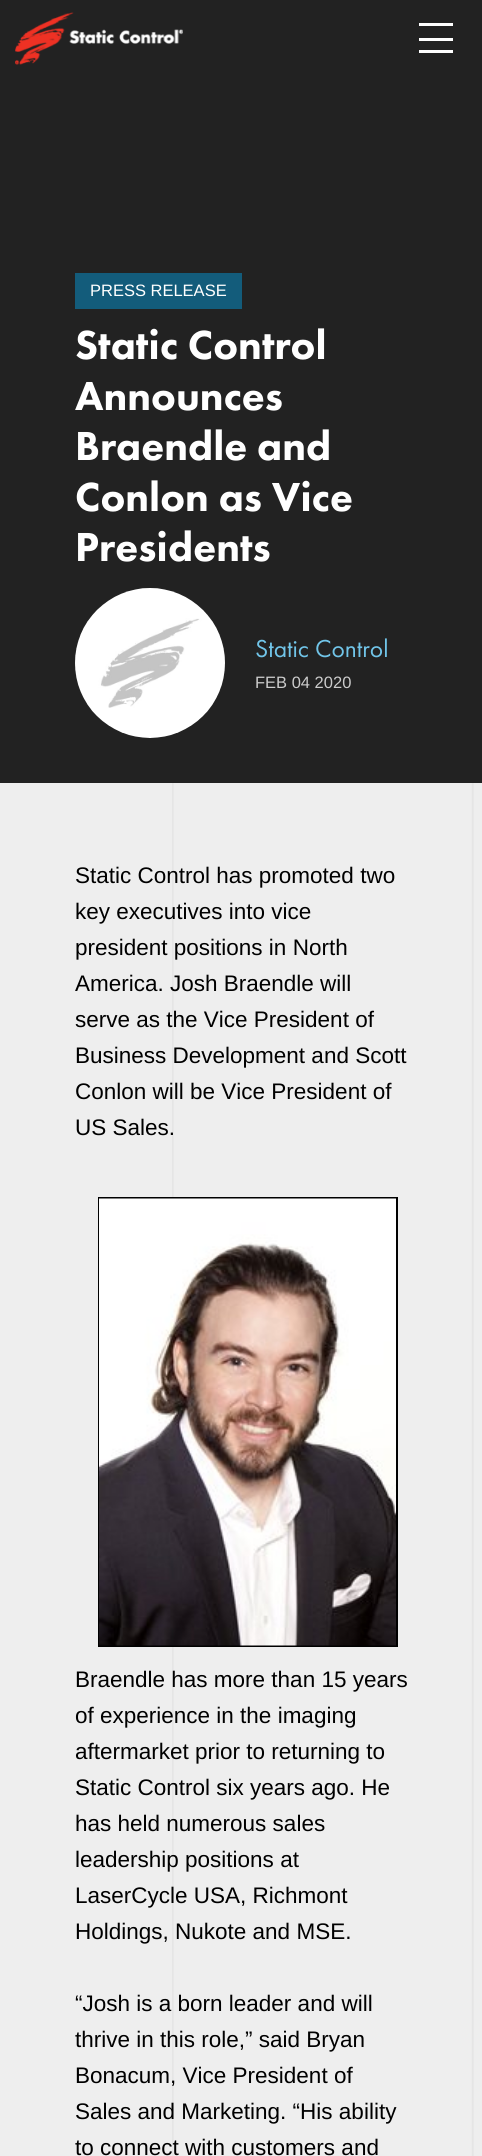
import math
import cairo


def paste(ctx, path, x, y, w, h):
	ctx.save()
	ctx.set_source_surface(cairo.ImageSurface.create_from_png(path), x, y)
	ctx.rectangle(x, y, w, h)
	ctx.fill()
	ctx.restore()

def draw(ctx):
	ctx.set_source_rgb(0.133, 0.133, 0.133)
	ctx.paint()
	paste(ctx, 'media/1.png', 15, 12, 168, 53)
	ctx.set_source_rgb(1, 1, 1)
	ctx.rectangle(419, 23, 34, 3)
	ctx.rectangle(419, 38, 34, 3)
	ctx.rectangle(419, 50, 34, 3)
	ctx.fill()
	ctx.set_source_rgb(0.075, 0.361, 0.482)
	ctx.rectangle(75, 273, 167, 36)
	ctx.fill()
	ctx.select_font_face('Liberation Sans')
	ctx.set_font_size(16.5)
	ctx.set_source_rgb(1, 1, 1)
	ctx.move_to(90, 296)
	ctx.show_text('PRESS RELEASE')
	ctx.select_font_face('Futura PT Black')
	ctx.set_font_size(42)
	for x, y, s in [
		(75, 359, 'Static Control'),
		(75, 410, 'Announces'),
		(75, 460, 'Braendle and'),
		(75, 511, 'Conlon as Vice'),
		(75, 561, 'Presidents'),
	]:
		ctx.move_to(x, y)
		ctx.show_text(s)
	paste(ctx, 'media/2.png', 75, 588, 150, 150)
	ctx.select_font_face('Futura PT')
	ctx.set_font_size(25.5)
	ctx.set_source_rgb(0.443, 0.773, 0.914)
	ctx.move_to(255, 657)
	ctx.show_text('Static Control')
	ctx.select_font_face('Liberation Sans')
	ctx.set_font_size(16.5)
	ctx.set_source_rgb(0.8, 0.8, 0.8)
	ctx.move_to(255, 688)
	ctx.show_text('FEB 04 2020')
	ctx.set_source_rgb(0.933, 0.933, 0.933)
	ctx.rectangle(0, 783, 482, 1373)
	ctx.fill()
	paste(ctx, 'media/3.png', 172, 783, 302, 1373)
	ctx.set_font_size(22.5)
	ctx.set_source_rgb(0, 0, 0)
	for x, y, s in [
		(75, 883, 'Static Control has promoted two'),
		(75, 919, 'key executives into vice'),
		(75, 955, 'president positions in North'),
		(75, 991, 'America. Josh Braendle will'),
		(75, 1027, 'serve as the Vice President of'),
		(75, 1063, 'Business Development and Scott'),
		(75, 1099, 'Conlon will be Vice President of'),
		(75, 1135, 'US Sales.'),
	]:
		ctx.move_to(x, y)
		ctx.show_text(s)
	ctx.rectangle(99, 1198, 298, 448)
	ctx.stroke()
	paste(ctx, 'media/4.png', 99, 1198, 297, 448)
	for x, y, s in [
		(75, 1687, 'Braendle has more than 15 years'),
		(75, 1723, 'of experience in the imaging'),
		(75, 1759, 'aftermarket prior to returning to'),
		(75, 1795, 'Static Control six years ago. He'),
		(75, 1831, 'has held numerous sales'),
		(75, 1867, 'leadership positions at'),
		(75, 1903, 'LaserCycle USA, Richmont'),
		(75, 1939, 'Holdings, Nukote and MSE.'),
		(75, 2011, '“Josh is a born leader and will'),
		(75, 2047, 'thrive in this role,” said Bryan'),
		(75, 2083, 'Bonacum, Vice President of'),
		(75, 2119, 'Sales and Marketing. “His ability'),
		(75, 2155, 'to connect with customers and'),
	]:
		ctx.move_to(x, y)
		ctx.show_text(s)


surface = cairo.ImageSurface(cairo.FORMAT_RGB24, 482, 2156)
ctx = cairo.Context(surface)
options = cairo.FontOptions()
options.set_hint_metrics(cairo.HINT_METRICS_OFF)
options.set_hint_style(cairo.HINT_STYLE_NONE)
ctx.set_font_options(options)
ctx.set_miter_limit(4)
draw(ctx)
surface.write_to_png('image.png')
